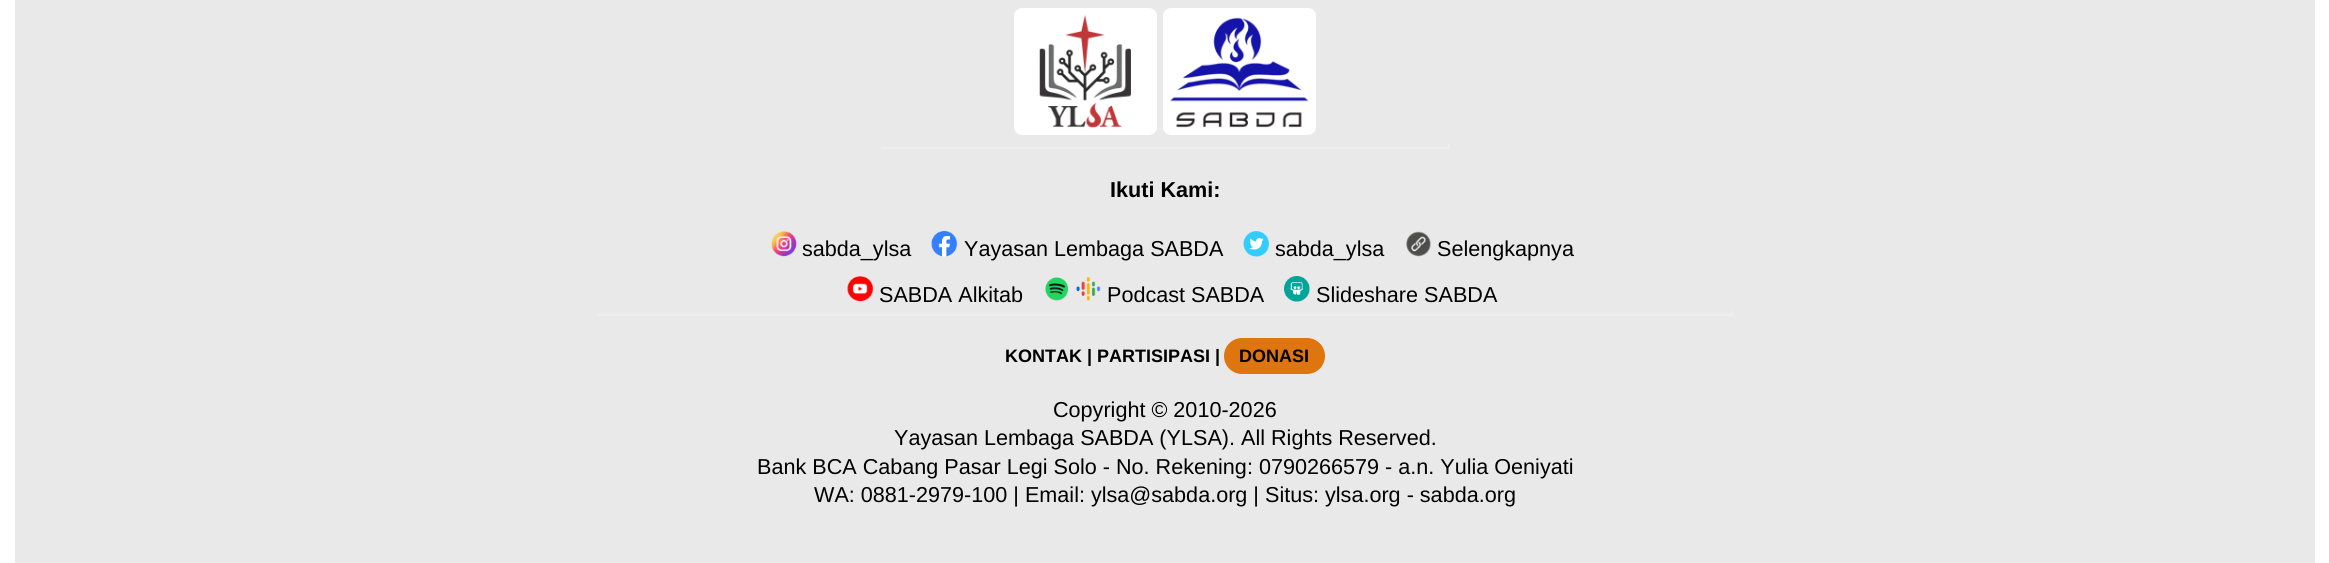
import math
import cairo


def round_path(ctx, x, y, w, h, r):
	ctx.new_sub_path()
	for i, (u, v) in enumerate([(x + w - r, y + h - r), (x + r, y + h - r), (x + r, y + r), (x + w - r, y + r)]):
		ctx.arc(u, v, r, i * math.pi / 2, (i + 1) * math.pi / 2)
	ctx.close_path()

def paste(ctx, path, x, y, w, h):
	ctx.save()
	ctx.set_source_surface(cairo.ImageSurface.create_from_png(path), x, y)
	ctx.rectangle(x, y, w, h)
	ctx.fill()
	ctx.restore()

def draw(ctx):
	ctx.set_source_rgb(1, 1, 1)
	ctx.paint()
	ctx.set_source_rgb(0.914, 0.914, 0.914)
	ctx.rectangle(15, 0, 2300, 563)
	ctx.fill()
	ctx.set_source_rgb(1, 1, 1)
	round_path(ctx, 1014, 8, 143, 127, 8)
	ctx.fill()
	round_path(ctx, 1163, 8, 153, 127, 8)
	ctx.fill()
	paste(ctx, 'media/1.png', 1039, 15, 92, 113)
	paste(ctx, 'media/2.png', 1170, 17, 138, 111)
	ctx.set_source_rgb(0.933, 0.933, 0.933)
	ctx.rectangle(1448, 144, 2, 5)
	ctx.fill()
	ctx.rectangle(881, 147, 568, 2)
	ctx.fill()
	ctx.select_font_face('Liberation Sans', cairo.FONT_SLANT_NORMAL, cairo.FONT_WEIGHT_BOLD)
	ctx.set_font_size(21.6)
	ctx.set_source_rgb(0, 0, 0)
	ctx.move_to(1110, 197)
	ctx.show_text('Ikuti Kami:')
	paste(ctx, 'media/3.png', 771, 231, 26, 26)
	ctx.select_font_face('Liberation Sans')
	ctx.move_to(802, 256)
	ctx.show_text('sabda_ylsa')
	paste(ctx, 'media/4.png', 931, 231, 26, 26)
	ctx.move_to(964, 256)
	ctx.show_text('Yayasan Lembaga SABDA')
	paste(ctx, 'media/5.png', 1243, 231, 26, 26)
	ctx.move_to(1275, 256)
	ctx.show_text('sabda_ylsa')
	paste(ctx, 'media/6.png', 1406, 231, 25, 26)
	ctx.move_to(1437, 256)
	ctx.show_text('Selengkapnya')
	paste(ctx, 'media/7.png', 847, 276, 26, 26)
	ctx.move_to(879, 302)
	ctx.show_text('SABDA Alkitab')
	paste(ctx, 'media/8.png', 1045, 277, 23, 24)
	paste(ctx, 'media/9.png', 1076, 276, 25, 25)
	ctx.move_to(1107, 302)
	ctx.show_text('Podcast SABDA')
	paste(ctx, 'media/10.png', 1284, 276, 26, 26)
	ctx.move_to(1316, 302)
	ctx.show_text('Slideshare SABDA')
	ctx.set_source_rgb(0.933, 0.933, 0.933)
	ctx.rectangle(1731, 311, 2, 5)
	ctx.fill()
	ctx.rectangle(597, 314, 1136, 2)
	ctx.fill()
	ctx.select_font_face('Liberation Sans', cairo.FONT_SLANT_NORMAL, cairo.FONT_WEIGHT_BOLD)
	ctx.set_font_size(18)
	ctx.set_source_rgb(0, 0, 0)
	ctx.move_to(1005, 362)
	ctx.show_text('KONTAK | PARTISIPASI |')
	ctx.set_source_rgb(0.875, 0.459, 0.059)
	round_path(ctx, 1224, 338, 101, 36, 18)
	ctx.fill()
	ctx.set_source_rgb(0, 0, 0)
	ctx.move_to(1239, 362)
	ctx.show_text('DONASI')
	ctx.select_font_face('Liberation Sans')
	ctx.set_font_size(21.6)
	for x, y, s in [
		(1053, 417, 'Copyright © 2010-2026'),
		(894, 445, 'Yayasan Lembaga SABDA (YLSA). All Rights Reserved.'),
		(757, 474, 'Bank BCA Cabang Pasar Legi Solo - No. Rekening: 0790266579 - a.n. Yulia Oeniyati'),
		(814, 502, 'WA: 0881-2979-100 | Email: ylsa@sabda.org | Situs: ylsa.org - sabda.org'),
	]:
		ctx.move_to(x, y)
		ctx.show_text(s)


surface = cairo.ImageSurface(cairo.FORMAT_RGB24, 2329, 563)
ctx = cairo.Context(surface)
options = cairo.FontOptions()
options.set_hint_metrics(cairo.HINT_METRICS_OFF)
options.set_hint_style(cairo.HINT_STYLE_NONE)
ctx.set_font_options(options)
ctx.set_miter_limit(4)
draw(ctx)
surface.write_to_png('image.png')
